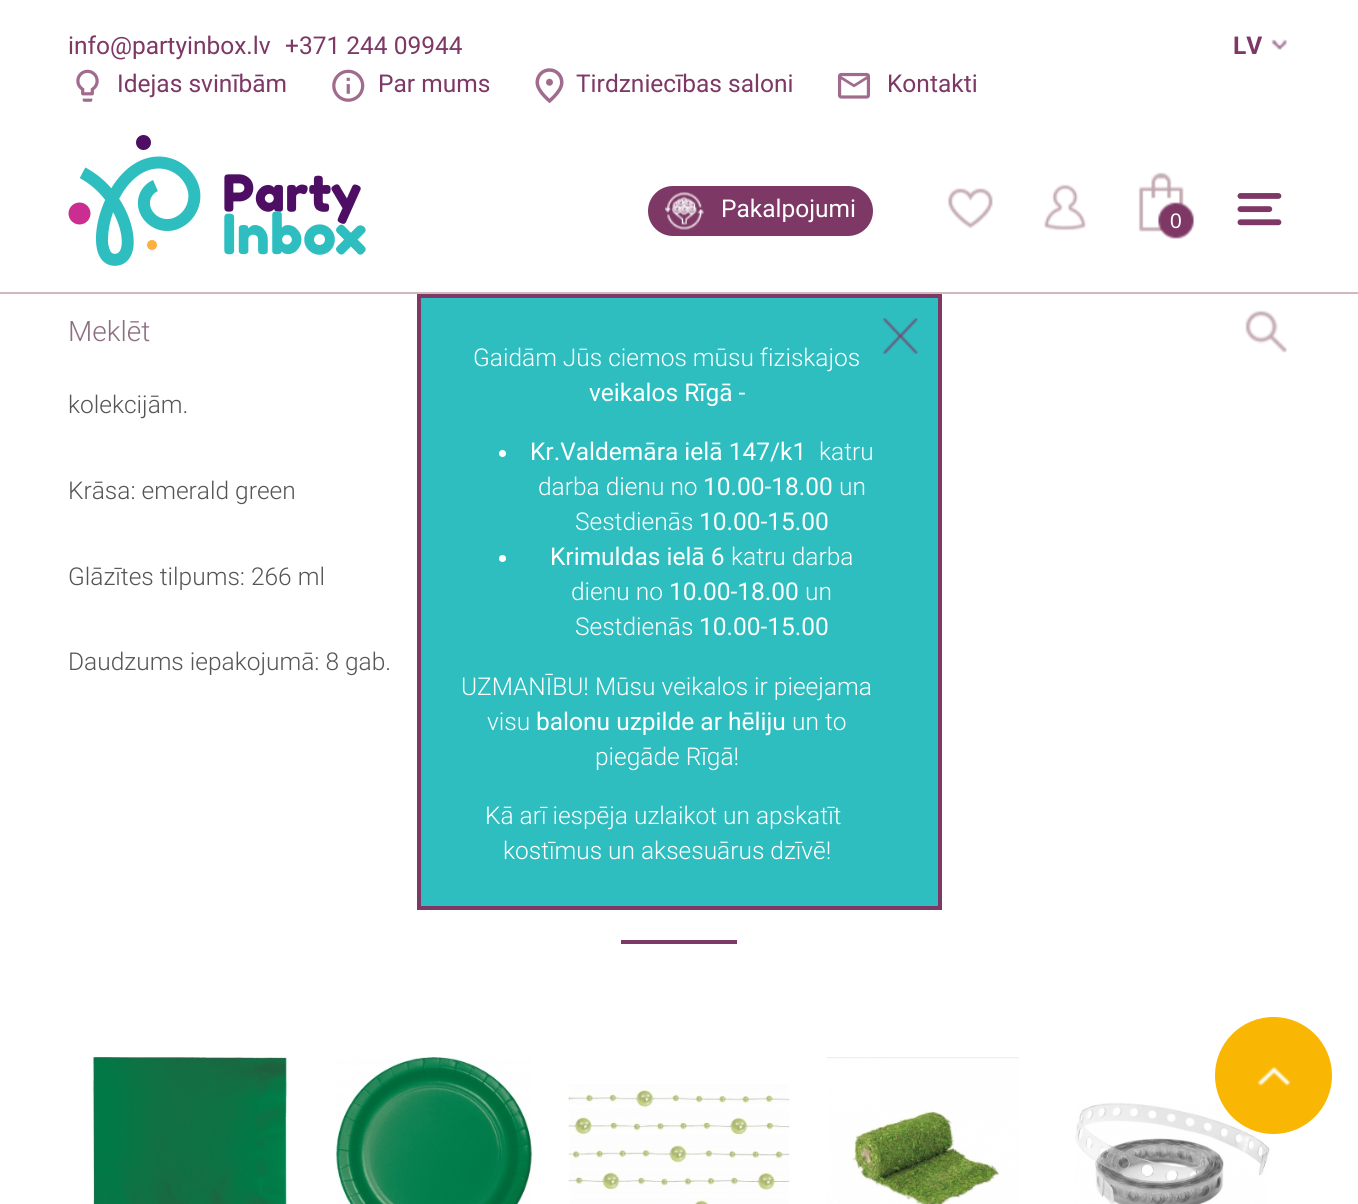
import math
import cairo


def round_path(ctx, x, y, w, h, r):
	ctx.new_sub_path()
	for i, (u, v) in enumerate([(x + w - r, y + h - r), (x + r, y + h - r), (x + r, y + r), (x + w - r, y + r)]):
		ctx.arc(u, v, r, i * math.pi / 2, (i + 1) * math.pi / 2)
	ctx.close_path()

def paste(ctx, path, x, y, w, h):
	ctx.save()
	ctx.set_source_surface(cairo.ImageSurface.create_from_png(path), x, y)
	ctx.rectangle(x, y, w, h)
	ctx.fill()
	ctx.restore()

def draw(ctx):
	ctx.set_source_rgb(1, 1, 1)
	ctx.paint()
	ctx.select_font_face('Roboto')
	ctx.set_font_size(24.5)
	ctx.set_source_rgb(0.49, 0.22, 0.396)
	ctx.move_to(68, 54)
	ctx.show_text('info@partyinbox.lv')
	ctx.move_to(285, 54)
	ctx.show_text('+371 244 09944')
	ctx.select_font_face('Roboto', cairo.FONT_SLANT_NORMAL, cairo.FONT_WEIGHT_BOLD)
	ctx.move_to(1233, 54)
	ctx.show_text('LV')
	paste(ctx, 'media/1.png', 1271, 39, 16, 11)
	paste(ctx, 'media/2.png', 76, 69, 23, 33)
	ctx.select_font_face('Roboto')
	ctx.move_to(117, 92)
	ctx.show_text('Idejas svinībām')
	paste(ctx, 'media/3.png', 332, 69, 33, 33)
	ctx.move_to(378, 92)
	ctx.show_text('Par mums')
	paste(ctx, 'media/4.png', 535, 68, 29, 36)
	ctx.move_to(576, 92)
	ctx.show_text('Tirdzniecības saloni')
	paste(ctx, 'media/5.png', 837, 72, 34, 27)
	ctx.move_to(887, 92)
	ctx.show_text('Kontakti')
	paste(ctx, 'media/6.png', 68, 135, 298, 131)
	paste(ctx, 'media/7.png', 1237, 193, 45, 33)
	round_path(ctx, 648, 186, 225, 50, 25)
	ctx.fill()
	paste(ctx, 'media/8.png', 665, 192, 39, 38)
	ctx.set_source_rgb(1, 1, 1)
	ctx.move_to(721, 217)
	ctx.show_text('Pakalpojumi')
	paste(ctx, 'media/9.png', 948, 188, 45, 41)
	paste(ctx, 'media/10.png', 1044, 184, 42, 47)
	paste(ctx, 'media/11.png', 1138, 172, 56, 67)
	ctx.select_font_face('Liberation Sans')
	ctx.set_font_size(21)
	ctx.move_to(1170, 228)
	ctx.show_text('0')
	ctx.set_source_rgb(0.812, 0.725, 0.757)
	ctx.rectangle(0, 292, 1358, 2)
	ctx.fill()
	ctx.select_font_face('Roboto Light')
	ctx.set_font_size(28)
	ctx.set_source_rgb(0.553, 0.431, 0.51)
	ctx.move_to(68, 341)
	ctx.show_text('Meklēt')
	paste(ctx, 'media/12.png', 1245, 310, 42, 43)
	ctx.set_font_size(24.5)
	ctx.set_source_rgb(0.333, 0.333, 0.333)
	for x, y, s in [
		(68, 413, 'kolekcijām.'),
		(68, 499, 'Krāsa: emerald green'),
		(68, 585, 'Glāzītes tilpums: 266 ml'),
		(68, 670, 'Daudzums iepakojumā: 8 gab.'),
	]:
		ctx.move_to(x, y)
		ctx.show_text(s)
	ctx.set_source_rgb(0.49, 0.22, 0.396)
	ctx.rectangle(621, 940, 116, 4)
	ctx.fill()
	paste(ctx, 'media/13.png', 92, 1057, 196, 147)
	paste(ctx, 'media/14.png', 335, 1057, 198, 147)
	paste(ctx, 'media/15.png', 568, 1084, 222, 120)
	paste(ctx, 'media/16.png', 826, 1057, 193, 147)
	paste(ctx, 'media/17.png', 1075, 1103, 195, 101)
	ctx.set_source_rgb(0.18, 0.745, 0.753)
	ctx.rectangle(419, 296, 521, 612)
	ctx.fill_preserve()
	ctx.set_source_rgb(0.49, 0.22, 0.396)
	ctx.set_line_width(4)
	ctx.stroke()
	paste(ctx, 'media/18.png', 883, 318, 35, 36)
	ctx.set_source_rgb(1, 1, 1)
	ctx.move_to(473, 366)
	ctx.show_text('Gaidām Jūs ciemos mūsu fiziskajos')
	ctx.select_font_face('Roboto')
	ctx.move_to(589, 401)
	ctx.show_text('veikalos Rīgā -')
	ctx.new_path()
	ctx.arc(502.5, 453.5, 3.5, 0, 2 * math.pi)
	ctx.fill()
	ctx.move_to(530, 460)
	ctx.show_text('Kr.Valdemāra ielā 147/k1')
	ctx.select_font_face('Roboto Light')
	ctx.move_to(819, 460)
	ctx.show_text('katru')
	ctx.move_to(538, 495)
	ctx.show_text('darba dienu no')
	ctx.select_font_face('Roboto')
	ctx.move_to(703, 495)
	ctx.show_text('10.00-18.00')
	ctx.select_font_face('Roboto Light')
	ctx.move_to(839, 495)
	ctx.show_text('un')
	ctx.move_to(575, 530)
	ctx.show_text('Sestdienās')
	ctx.select_font_face('Roboto')
	ctx.move_to(699, 530)
	ctx.show_text('10.00-15.00')
	ctx.new_path()
	ctx.arc(502.5, 558.5, 3.5, 0, 2 * math.pi)
	ctx.fill()
	ctx.move_to(550, 565)
	ctx.show_text('Krimuldas ielā 6')
	ctx.select_font_face('Roboto Light')
	ctx.move_to(731, 565)
	ctx.show_text('katru darba')
	ctx.move_to(571, 600)
	ctx.show_text('dienu no')
	ctx.select_font_face('Roboto')
	ctx.move_to(669, 600)
	ctx.show_text('10.00-18.00')
	ctx.select_font_face('Roboto Light')
	ctx.move_to(805, 600)
	ctx.show_text('un')
	ctx.move_to(575, 635)
	ctx.show_text('Sestdienās')
	ctx.select_font_face('Roboto')
	ctx.move_to(699, 635)
	ctx.show_text('10.00-15.00')
	ctx.select_font_face('Roboto Light')
	ctx.move_to(461, 695)
	ctx.show_text('UZMANĪBU! Mūsu veikalos ir pieejama')
	ctx.move_to(487, 730)
	ctx.show_text('visu')
	ctx.select_font_face('Roboto')
	ctx.move_to(536, 730)
	ctx.show_text('balonu uzpilde ar hēliju')
	ctx.select_font_face('Roboto Light')
	for x, y, s in [
		(792, 730, 'un to'),
		(595, 765, 'piegāde Rīgā!'),
		(485, 824, 'Kā arī iespēja uzlaikot un apskatīt'),
		(503, 859, 'kostīmus un aksesuārus dzīvē!'),
	]:
		ctx.move_to(x, y)
		ctx.show_text(s)
	ctx.set_source_rgb(0.973, 0.718, 0.012)
	ctx.new_path()
	ctx.arc(1273.5, 1075.5, 58.5, 0, 2 * math.pi)
	ctx.fill()
	paste(ctx, 'media/19.png', 1257, 1066, 34, 20)


surface = cairo.ImageSurface(cairo.FORMAT_RGB24, 1358, 1204)
ctx = cairo.Context(surface)
options = cairo.FontOptions()
options.set_hint_metrics(cairo.HINT_METRICS_OFF)
options.set_hint_style(cairo.HINT_STYLE_NONE)
ctx.set_font_options(options)
ctx.set_miter_limit(4)
draw(ctx)
surface.write_to_png('image.png')
